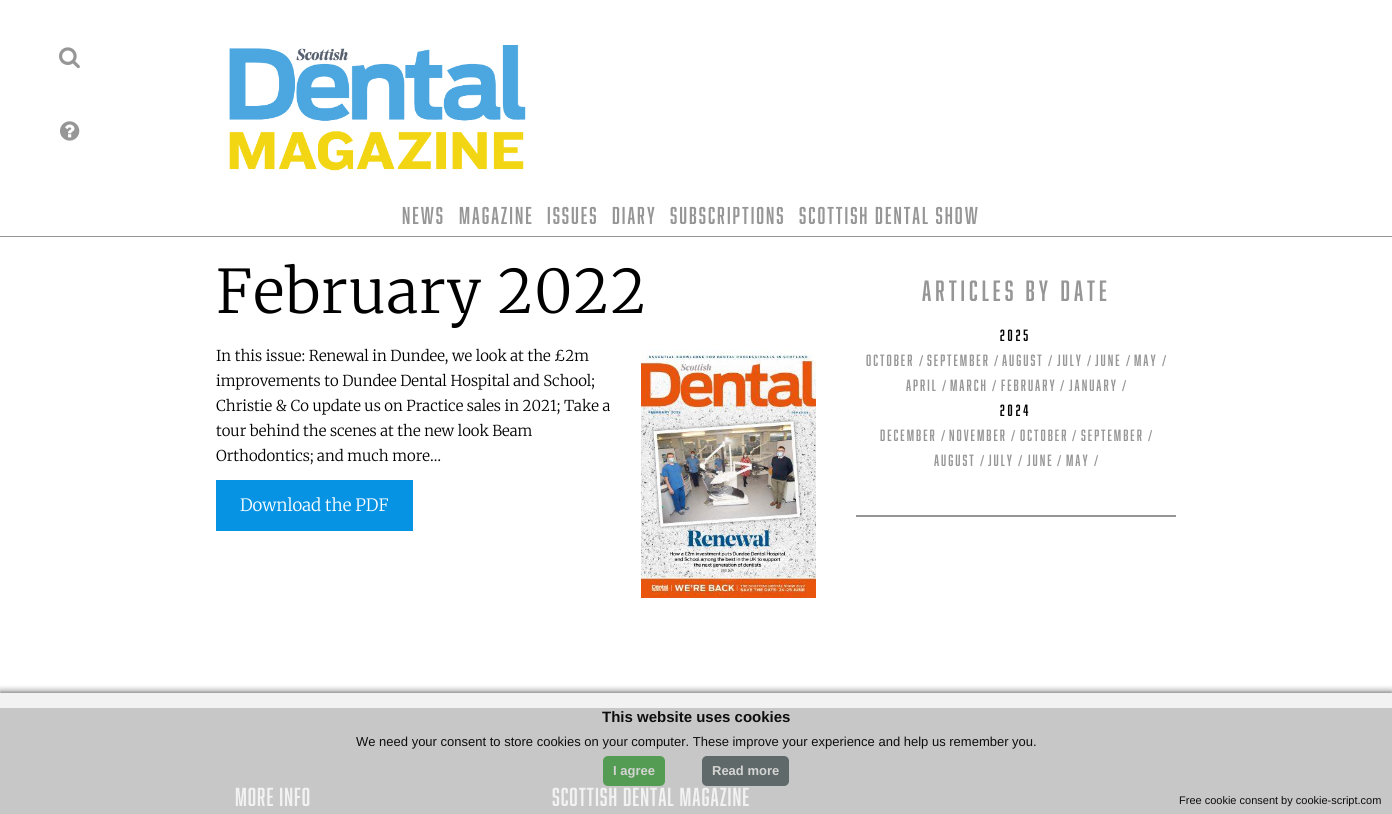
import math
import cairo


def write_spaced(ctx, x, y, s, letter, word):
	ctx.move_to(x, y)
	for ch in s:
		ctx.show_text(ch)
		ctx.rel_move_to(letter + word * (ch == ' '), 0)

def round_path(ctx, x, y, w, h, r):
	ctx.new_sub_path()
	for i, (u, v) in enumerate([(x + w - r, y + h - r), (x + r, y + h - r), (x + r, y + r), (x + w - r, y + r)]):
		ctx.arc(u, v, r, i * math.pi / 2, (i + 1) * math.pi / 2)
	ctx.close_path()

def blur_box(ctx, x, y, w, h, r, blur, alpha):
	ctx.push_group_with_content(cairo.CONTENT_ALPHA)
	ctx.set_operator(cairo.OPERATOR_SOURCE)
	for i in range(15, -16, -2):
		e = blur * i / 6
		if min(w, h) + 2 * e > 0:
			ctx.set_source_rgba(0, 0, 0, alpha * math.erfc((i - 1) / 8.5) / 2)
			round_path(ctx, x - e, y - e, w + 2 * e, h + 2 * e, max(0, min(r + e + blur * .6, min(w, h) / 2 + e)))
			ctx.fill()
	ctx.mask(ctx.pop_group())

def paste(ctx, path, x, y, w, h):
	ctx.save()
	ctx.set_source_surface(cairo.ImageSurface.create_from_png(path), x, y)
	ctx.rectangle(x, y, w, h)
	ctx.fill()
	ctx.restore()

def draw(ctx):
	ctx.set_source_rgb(1, 1, 1)
	ctx.paint()
	ctx.set_source_rgb(0.949, 0.949, 0.949)
	ctx.rectangle(0, 693, 1392, 15)
	ctx.fill()
	ctx.set_source_rgb(0.588, 0.588, 0.588)
	ctx.rectangle(0, 236, 1392, 1)
	ctx.fill()
	paste(ctx, 'media/1.png', 59, 47, 21, 22)
	paste(ctx, 'media/2.png', 60, 121, 20, 20)
	paste(ctx, 'media/3.png', 229, 45, 297, 126)
	ctx.select_font_face('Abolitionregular')
	ctx.set_font_size(22.5)
	for x, y, s in [
		(402, 224, 'News'),
		(459, 224, 'Magazine'),
		(547, 224, 'Issues'),
		(612, 224, 'Diary'),
		(670, 224, 'Subscriptions'),
		(799, 224, 'Scottish Dental Show'),
	]:
		write_spaced(ctx, x, y, s, 2, 0)
	ctx.select_font_face('Merriweather Light')
	ctx.set_font_size(60)
	ctx.set_source_rgb(0, 0, 0)
	write_spaced(ctx, 216, 313, 'February 2022', 1, 0)
	ctx.set_font_size(15)
	for x, y, s in [
		(216, 361, 'In this issue: Renewal in Dundee, we look at the £2m'),
		(216, 386, 'improvements to Dundee Dental Hospital and School;'),
		(216, 411, 'Christie & Co update us on Practice sales in 2021; Take a'),
		(216, 436, 'tour behind the scenes at the new look Beam'),
		(216, 461, 'Orthodontics; and much more…'),
	]:
		ctx.move_to(x, y)
		ctx.show_text(s)
	paste(ctx, 'media/4.png', 641, 350, 175, 248)
	ctx.set_source_rgb(0.024, 0.576, 0.89)
	ctx.rectangle(216, 480, 197, 51)
	ctx.fill()
	ctx.set_font_size(16.9)
	ctx.set_source_rgb(1, 1, 1)
	ctx.move_to(240, 511)
	ctx.show_text('Download the PDF')
	ctx.set_source_rgb(0.588, 0.588, 0.588)
	ctx.rectangle(856, 515, 320, 2)
	ctx.fill()
	ctx.select_font_face('Abolitionregular')
	ctx.set_font_size(27)
	write_spaced(ctx, 922, 301, 'Articles by date', 4, 0)
	ctx.set_font_size(15)
	ctx.set_source_rgb(0, 0, 0)
	write_spaced(ctx, 1000, 341, '2025', 3, 0)
	ctx.set_source_rgb(0.588, 0.588, 0.588)
	write_spaced(ctx, 866, 366, 'October', 2, 0)
	ctx.select_font_face('Liberation Sans')
	ctx.move_to(919, 366)
	ctx.show_text('/')
	ctx.select_font_face('Abolitionregular')
	write_spaced(ctx, 927, 366, 'September', 2, 0)
	ctx.select_font_face('Liberation Sans')
	ctx.move_to(994, 366)
	ctx.show_text('/')
	ctx.select_font_face('Abolitionregular')
	write_spaced(ctx, 1002, 366, 'August', 2, 0)
	ctx.select_font_face('Liberation Sans')
	ctx.move_to(1048, 366)
	ctx.show_text('/')
	ctx.select_font_face('Abolitionregular')
	write_spaced(ctx, 1057, 366, 'July', 2, 0)
	ctx.select_font_face('Liberation Sans')
	ctx.move_to(1087, 366)
	ctx.show_text('/')
	ctx.select_font_face('Abolitionregular')
	write_spaced(ctx, 1095, 366, 'June', 2, 0)
	ctx.select_font_face('Liberation Sans')
	ctx.move_to(1126, 366)
	ctx.show_text('/')
	ctx.select_font_face('Abolitionregular')
	write_spaced(ctx, 1134, 366, 'May', 2, 0)
	ctx.select_font_face('Liberation Sans')
	ctx.move_to(1162, 366)
	ctx.show_text('/')
	ctx.select_font_face('Abolitionregular')
	write_spaced(ctx, 906, 391, 'April', 2, 0)
	ctx.select_font_face('Liberation Sans')
	ctx.move_to(942, 391)
	ctx.show_text('/')
	ctx.select_font_face('Abolitionregular')
	write_spaced(ctx, 950, 391, 'March', 2, 0)
	ctx.select_font_face('Liberation Sans')
	ctx.move_to(992, 391)
	ctx.show_text('/')
	ctx.select_font_face('Abolitionregular')
	write_spaced(ctx, 1001, 391, 'February', 2, 0)
	ctx.select_font_face('Liberation Sans')
	ctx.move_to(1060, 391)
	ctx.show_text('/')
	ctx.select_font_face('Abolitionregular')
	write_spaced(ctx, 1069, 391, 'January', 2, 0)
	ctx.select_font_face('Liberation Sans')
	ctx.move_to(1122, 391)
	ctx.show_text('/')
	ctx.select_font_face('Abolitionregular')
	ctx.set_source_rgb(0, 0, 0)
	write_spaced(ctx, 1000, 416, '2024', 3, 0)
	ctx.set_source_rgb(0.588, 0.588, 0.588)
	write_spaced(ctx, 880, 441, 'December', 2, 0)
	ctx.select_font_face('Liberation Sans')
	ctx.move_to(941, 441)
	ctx.show_text('/')
	ctx.select_font_face('Abolitionregular')
	write_spaced(ctx, 949, 441, 'November', 2, 0)
	ctx.select_font_face('Liberation Sans')
	ctx.move_to(1011, 441)
	ctx.show_text('/')
	ctx.select_font_face('Abolitionregular')
	write_spaced(ctx, 1020, 441, 'October', 2, 0)
	ctx.select_font_face('Liberation Sans')
	ctx.move_to(1072, 441)
	ctx.show_text('/')
	ctx.select_font_face('Abolitionregular')
	write_spaced(ctx, 1081, 441, 'September', 2, 0)
	ctx.select_font_face('Liberation Sans')
	ctx.move_to(1148, 441)
	ctx.show_text('/')
	ctx.select_font_face('Abolitionregular')
	write_spaced(ctx, 934, 466, 'August', 2, 0)
	ctx.select_font_face('Liberation Sans')
	ctx.move_to(980, 466)
	ctx.show_text('/')
	ctx.select_font_face('Abolitionregular')
	write_spaced(ctx, 988, 466, 'July', 2, 0)
	ctx.select_font_face('Liberation Sans')
	ctx.move_to(1018, 466)
	ctx.show_text('/')
	ctx.select_font_face('Abolitionregular')
	write_spaced(ctx, 1027, 466, 'June', 2, 0)
	ctx.select_font_face('Liberation Sans')
	ctx.move_to(1057, 466)
	ctx.show_text('/')
	ctx.select_font_face('Abolitionregular')
	write_spaced(ctx, 1066, 466, 'May', 2, 0)
	ctx.select_font_face('Liberation Sans')
	ctx.move_to(1094, 466)
	ctx.show_text('/')
	ctx.set_source_rgb(0.78, 0.78, 0.78)
	ctx.rectangle(0, 708, 1392, 106)
	ctx.fill()
	ctx.save()
	ctx.rectangle(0, 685, 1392, 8)
	ctx.clip()
	ctx.set_source_rgb(0.224, 0.224, 0.224)
	blur_box(ctx, 0, 693, 1392, 121, 0, 4, 1)
	ctx.restore()
	ctx.select_font_face('Liberation Sans', cairo.FONT_SLANT_NORMAL, cairo.FONT_WEIGHT_BOLD)
	ctx.set_source_rgb(0.051, 0.051, 0.051)
	ctx.move_to(602, 722)
	ctx.show_text('This website uses cookies')
	ctx.select_font_face('Liberation Sans')
	ctx.set_font_size(13)
	ctx.move_to(356, 746)
	ctx.show_text('We need your consent to store cookies on your computer. These improve your experience and help us remember you.')
	ctx.set_source_rgb(0.329, 0.612, 0.329)
	round_path(ctx, 603, 756, 62, 30, 5)
	ctx.fill()
	ctx.select_font_face('Liberation Sans', cairo.FONT_SLANT_NORMAL, cairo.FONT_WEIGHT_BOLD)
	ctx.set_source_rgb(0.831, 0.831, 0.827)
	ctx.move_to(613, 775)
	ctx.show_text('I agree')
	ctx.set_source_rgb(0.373, 0.412, 0.416)
	round_path(ctx, 702, 756, 87, 30, 5)
	ctx.fill()
	ctx.set_source_rgb(0.831, 0.831, 0.827)
	ctx.move_to(712, 775)
	ctx.show_text('Read more')
	ctx.select_font_face('Liberation Sans')
	ctx.set_font_size(11)
	ctx.set_source_rgb(0.051, 0.051, 0.051)
	ctx.move_to(1179, 804)
	ctx.show_text('Free cookie consent by cookie-script.com')
	ctx.select_font_face('Abolitionregular')
	ctx.set_font_size(24)
	ctx.set_source_rgb(0.949, 0.949, 0.949)
	write_spaced(ctx, 235, 806, 'More info', 1, 0)
	write_spaced(ctx, 552, 806, 'Scottish Dental magazine', 1, 0)


surface = cairo.ImageSurface(cairo.FORMAT_RGB24, 1392, 814)
ctx = cairo.Context(surface)
options = cairo.FontOptions()
options.set_hint_metrics(cairo.HINT_METRICS_OFF)
options.set_hint_style(cairo.HINT_STYLE_NONE)
ctx.set_font_options(options)
ctx.set_miter_limit(4)
draw(ctx)
surface.write_to_png('image.png')
